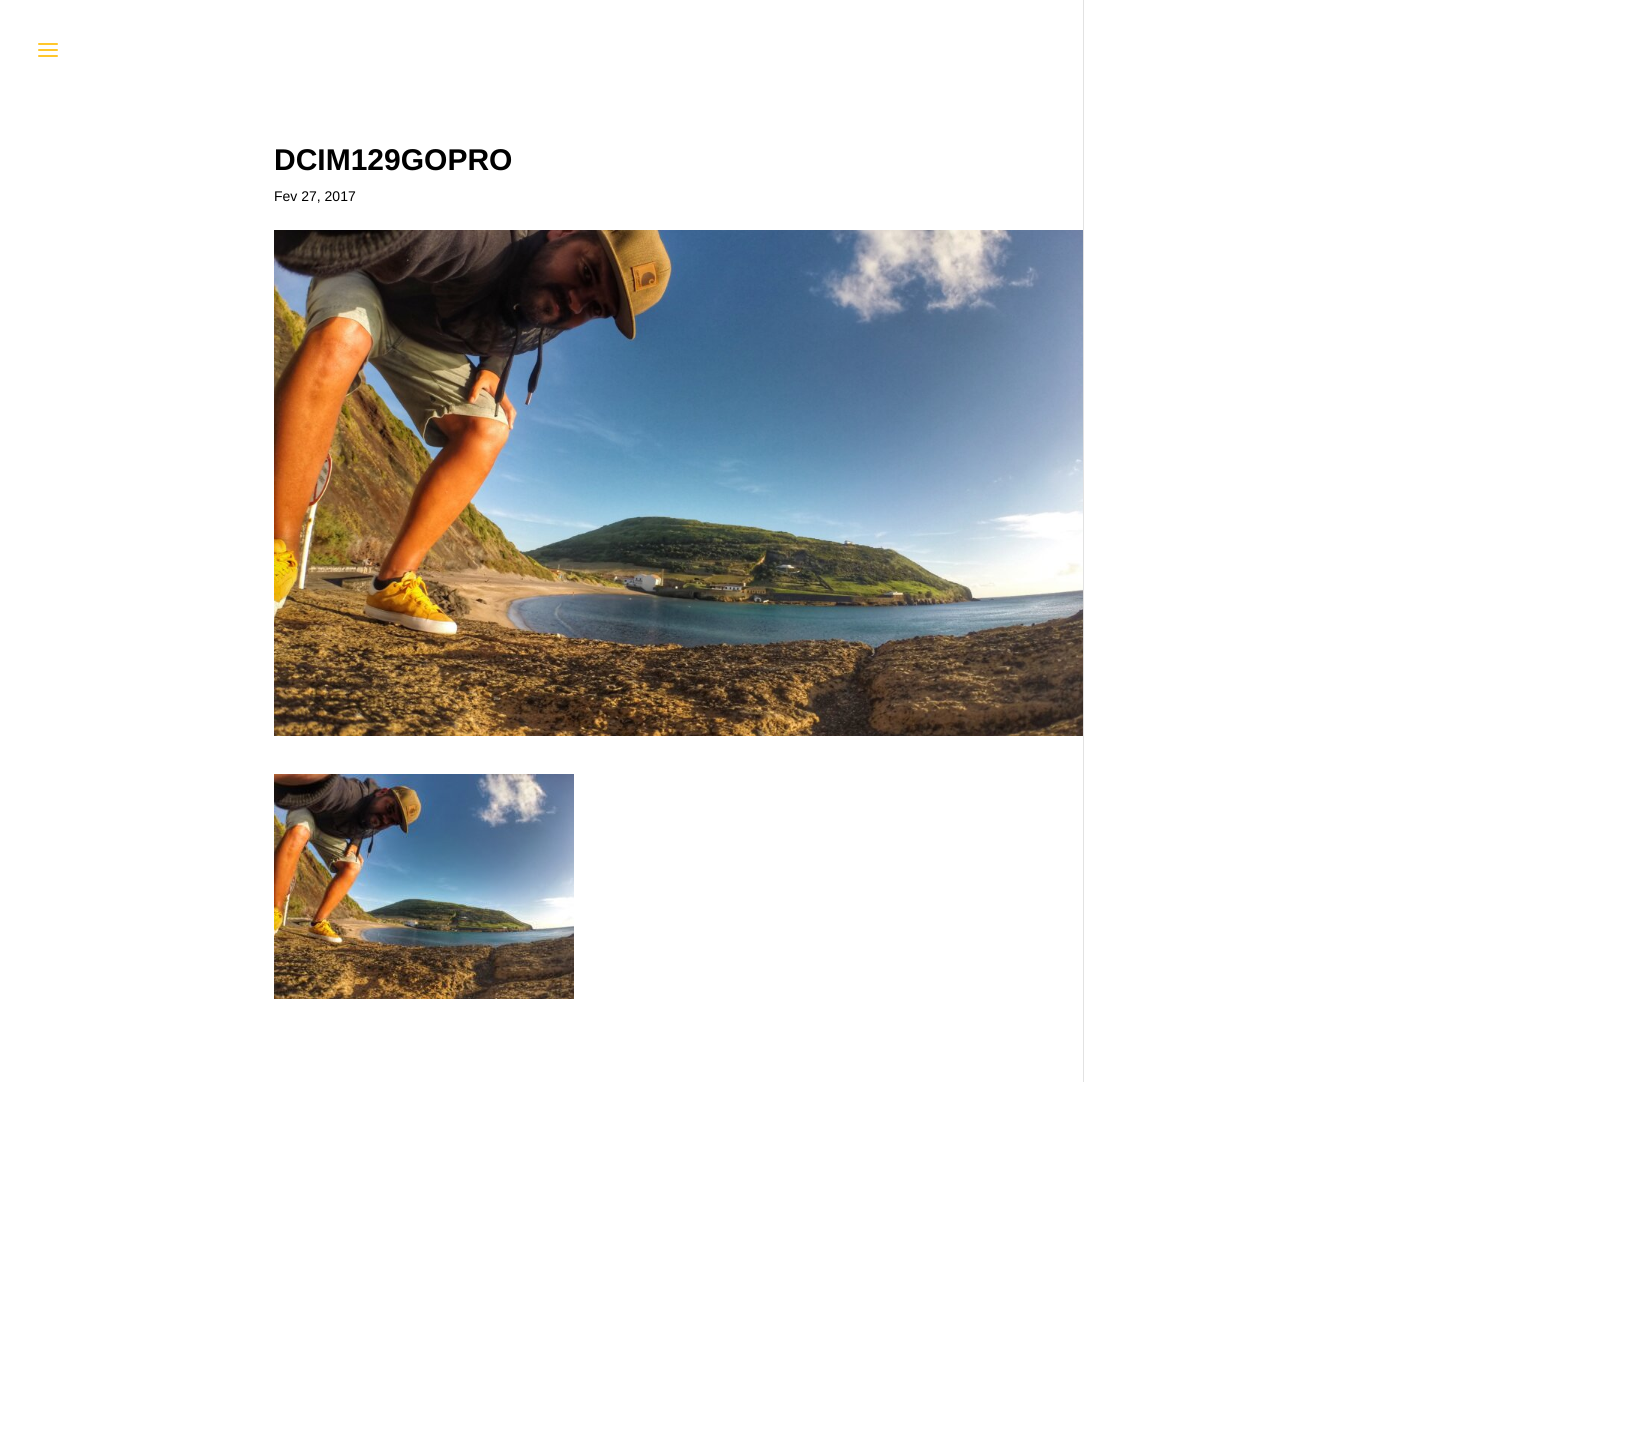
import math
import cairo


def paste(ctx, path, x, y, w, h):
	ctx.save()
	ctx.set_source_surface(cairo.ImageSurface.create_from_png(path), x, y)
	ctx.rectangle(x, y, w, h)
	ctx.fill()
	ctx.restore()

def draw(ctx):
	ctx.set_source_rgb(1, 1, 1)
	ctx.paint()
	paste(ctx, 'media/1.png', 38, 43, 20, 14)
	ctx.select_font_face('Liberation Sans', cairo.FONT_SLANT_NORMAL, cairo.FONT_WEIGHT_BOLD)
	ctx.set_font_size(30)
	ctx.set_source_rgb(0, 0, 0)
	ctx.move_to(274, 170)
	ctx.show_text('DCIM129GOPRO')
	ctx.select_font_face('Liberation Sans')
	ctx.set_font_size(14)
	ctx.move_to(274, 201)
	ctx.show_text('Fev 27, 2017')
	paste(ctx, 'media/2.png', 274, 230, 809, 506)
	paste(ctx, 'media/3.png', 274, 774, 300, 225)
	ctx.set_source_rgb(0.886, 0.886, 0.886)
	ctx.rectangle(1083, 0, 1, 1082)
	ctx.fill()


surface = cairo.ImageSurface(cairo.FORMAT_RGB24, 1628, 1455)
ctx = cairo.Context(surface)
options = cairo.FontOptions()
options.set_hint_metrics(cairo.HINT_METRICS_OFF)
options.set_hint_style(cairo.HINT_STYLE_NONE)
ctx.set_font_options(options)
ctx.set_miter_limit(4)
draw(ctx)
surface.write_to_png('image.png')
